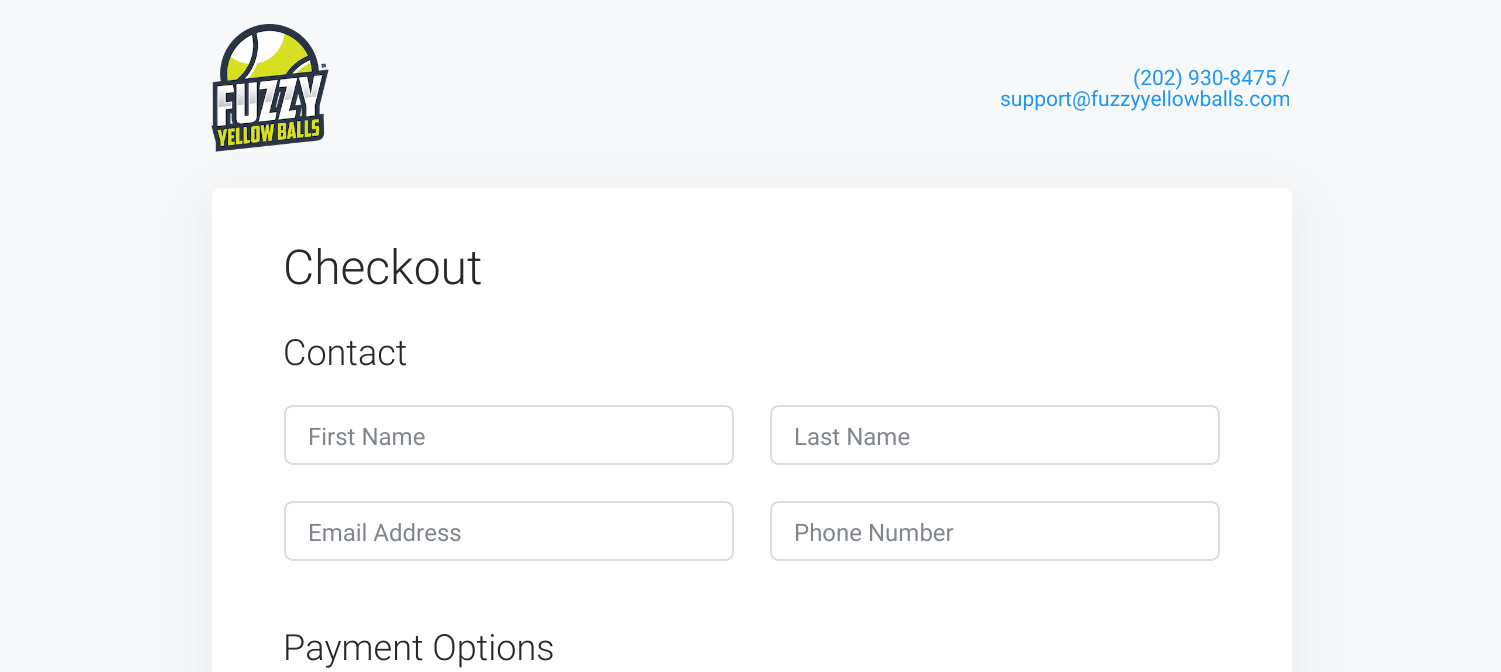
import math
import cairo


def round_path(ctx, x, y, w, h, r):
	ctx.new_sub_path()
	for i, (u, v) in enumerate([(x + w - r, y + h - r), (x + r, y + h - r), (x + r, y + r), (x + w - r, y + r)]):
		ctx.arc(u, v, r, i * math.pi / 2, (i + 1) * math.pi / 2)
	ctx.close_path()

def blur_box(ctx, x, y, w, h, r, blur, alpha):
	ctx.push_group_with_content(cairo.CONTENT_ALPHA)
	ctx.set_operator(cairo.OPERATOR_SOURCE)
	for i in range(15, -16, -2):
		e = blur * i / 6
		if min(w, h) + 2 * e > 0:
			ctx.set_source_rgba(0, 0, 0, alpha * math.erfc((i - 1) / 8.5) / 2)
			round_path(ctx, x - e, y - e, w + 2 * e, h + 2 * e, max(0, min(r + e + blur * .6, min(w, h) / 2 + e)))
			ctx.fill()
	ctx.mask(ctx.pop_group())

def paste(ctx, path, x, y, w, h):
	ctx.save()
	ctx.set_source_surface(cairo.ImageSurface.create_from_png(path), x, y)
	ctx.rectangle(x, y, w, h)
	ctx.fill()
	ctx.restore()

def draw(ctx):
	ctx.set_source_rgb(0.961, 0.969, 0.973)
	ctx.paint()
	ctx.set_source_rgb(0, 0, 0)
	blur_box(ctx, 212, 206, 1080, 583, 9, 36, 0.06)
	paste(ctx, 'media/1.png', 211, 24, 118, 128)
	ctx.select_font_face('Roboto')
	ctx.set_font_size(21)
	ctx.set_source_rgb(0.125, 0.588, 0.937)
	ctx.move_to(1133, 85)
	ctx.show_text('(202) 930-8475 /')
	ctx.move_to(1000, 106)
	ctx.show_text('support@fuzzyyellowballs.com')
	ctx.set_source_rgb(1, 1, 1)
	round_path(ctx, 212, 188, 1080, 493, 9)
	ctx.fill()
	ctx.select_font_face('Roboto Light')
	ctx.set_font_size(48)
	ctx.set_source_rgb(0.153, 0.157, 0.169)
	ctx.move_to(283, 284)
	ctx.show_text('Checkout')
	ctx.set_font_size(36)
	ctx.move_to(283, 365)
	ctx.show_text('Contact')
	round_path(ctx, 285, 406, 448, 58, 8)
	ctx.set_source_rgb(0.855, 0.863, 0.878)
	ctx.stroke()
	ctx.select_font_face('Roboto')
	ctx.set_font_size(24)
	ctx.set_source_rgb(0.502, 0.525, 0.545)
	ctx.move_to(308, 445)
	ctx.show_text('First Name')
	round_path(ctx, 771, 406, 448, 58, 8)
	ctx.set_source_rgb(0.855, 0.863, 0.878)
	ctx.stroke()
	ctx.set_source_rgb(0.502, 0.525, 0.545)
	ctx.move_to(794, 445)
	ctx.show_text('Last Name')
	round_path(ctx, 285, 502, 448, 58, 8)
	ctx.set_source_rgb(0.855, 0.863, 0.878)
	ctx.stroke()
	ctx.set_source_rgb(0.502, 0.525, 0.545)
	ctx.move_to(308, 541)
	ctx.show_text('Email Address')
	round_path(ctx, 771, 502, 448, 58, 8)
	ctx.set_source_rgb(0.855, 0.863, 0.878)
	ctx.stroke()
	ctx.set_source_rgb(0.502, 0.525, 0.545)
	ctx.move_to(794, 541)
	ctx.show_text('Phone Number')
	ctx.select_font_face('Roboto Light')
	ctx.set_font_size(36)
	ctx.set_source_rgb(0.153, 0.157, 0.169)
	ctx.move_to(283, 660)
	ctx.show_text('Payment Options')


surface = cairo.ImageSurface(cairo.FORMAT_RGB24, 1501, 672)
ctx = cairo.Context(surface)
options = cairo.FontOptions()
options.set_hint_metrics(cairo.HINT_METRICS_OFF)
options.set_hint_style(cairo.HINT_STYLE_NONE)
ctx.set_font_options(options)
ctx.set_miter_limit(4)
draw(ctx)
surface.write_to_png('image.png')
